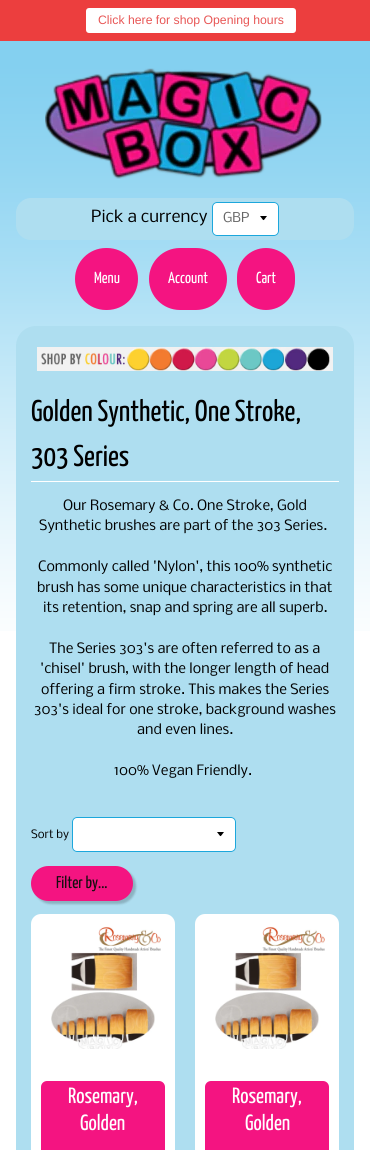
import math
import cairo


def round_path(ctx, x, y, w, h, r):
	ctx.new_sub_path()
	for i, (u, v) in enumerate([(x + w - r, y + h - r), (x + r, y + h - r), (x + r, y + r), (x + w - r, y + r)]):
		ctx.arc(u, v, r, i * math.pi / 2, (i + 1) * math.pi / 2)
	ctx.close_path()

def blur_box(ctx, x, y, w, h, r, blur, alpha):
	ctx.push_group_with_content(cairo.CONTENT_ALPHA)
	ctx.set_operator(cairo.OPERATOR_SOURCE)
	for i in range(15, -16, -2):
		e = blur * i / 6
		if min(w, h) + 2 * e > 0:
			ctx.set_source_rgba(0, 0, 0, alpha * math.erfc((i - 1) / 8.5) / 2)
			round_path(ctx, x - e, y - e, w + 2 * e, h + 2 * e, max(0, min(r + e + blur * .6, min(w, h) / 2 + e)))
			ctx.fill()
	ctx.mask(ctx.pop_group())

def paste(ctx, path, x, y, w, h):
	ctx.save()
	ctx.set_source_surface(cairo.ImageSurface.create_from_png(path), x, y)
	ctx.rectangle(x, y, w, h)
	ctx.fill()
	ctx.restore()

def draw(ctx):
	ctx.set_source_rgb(1, 1, 1)
	ctx.paint()
	paste(ctx, 'media/1.png', 0, 41, 370, 590)
	ctx.set_source_rgb(0.922, 0.243, 0.243)
	ctx.rectangle(0, 0, 370, 41)
	ctx.fill()
	ctx.set_source_rgb(1, 1, 1)
	round_path(ctx, 86, 8, 210, 25, 3)
	ctx.fill()
	ctx.select_font_face('Liberation Sans')
	ctx.set_font_size(12.25)
	ctx.set_source_rgb(0.91, 0.341, 0.337)
	ctx.move_to(98, 24)
	ctx.show_text('Click here for shop Opening hours')
	paste(ctx, 'media/2.png', 45, 68, 277, 111)
	ctx.set_source_rgb(0.682, 0.871, 0.941)
	round_path(ctx, 16, 198, 338, 42, 15)
	ctx.fill()
	ctx.select_font_face('Nobile')
	ctx.set_font_size(16)
	ctx.set_source_rgb(0, 0, 0)
	ctx.move_to(91, 222)
	ctx.show_text('Pick a currency')
	ctx.set_source_rgb(1, 1, 1)
	round_path(ctx, 212, 202, 67, 34, 5)
	ctx.fill()
	ctx.set_source_rgb(0, 0, 0)
	ctx.new_path()
	ctx.move_to(260, 216)
	ctx.curve_to(264.5, 221.5, 262.5, 221.5, 267, 216)
	ctx.close_path()
	ctx.fill()
	round_path(ctx, 212.5, 202.5, 66, 33, 4.5)
	ctx.set_source_rgb(0.11, 0.655, 0.863)
	ctx.set_line_width(1)
	ctx.stroke()
	ctx.set_font_size(13)
	ctx.set_source_rgb(0.4, 0.4, 0.4)
	ctx.move_to(223, 222)
	ctx.show_text('GBP')
	ctx.set_source_rgb(0.957, 0.082, 0.506)
	round_path(ctx, 76.5, 249.5, 60, 59, 29.5)
	ctx.fill_preserve()
	ctx.set_line_width(3)
	ctx.stroke()
	ctx.select_font_face('Yanone Kaffeesatz ExtraLight')
	ctx.set_font_size(16)
	ctx.set_source_rgb(1, 1, 1)
	ctx.move_to(94, 283)
	ctx.show_text('Menu')
	ctx.set_source_rgb(0.957, 0.082, 0.506)
	round_path(ctx, 150.5, 249.5, 75, 59, 29.5)
	ctx.fill_preserve()
	ctx.stroke()
	ctx.set_source_rgb(1, 1, 1)
	ctx.move_to(168, 283)
	ctx.show_text('Account')
	ctx.set_source_rgb(0.957, 0.082, 0.506)
	round_path(ctx, 238.5, 249.5, 55, 59, 27.5)
	ctx.fill_preserve()
	ctx.stroke()
	ctx.set_source_rgb(1, 1, 1)
	ctx.move_to(256, 283)
	ctx.show_text('Cart')
	ctx.set_source_rgb(0.682, 0.871, 0.941)
	round_path(ctx, 16, 326, 338, 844, 20)
	ctx.fill()
	paste(ctx, 'media/3.png', 37, 347, 296, 24)
	ctx.set_source_rgb(1, 1, 1)
	ctx.rectangle(31, 481, 308, 1)
	ctx.fill()
	ctx.set_font_size(30)
	ctx.set_source_rgb(0, 0, 0)
	ctx.move_to(31, 421)
	ctx.show_text('Golden Synthetic, One Stroke,')
	ctx.move_to(31, 466)
	ctx.show_text('303 Series')
	ctx.select_font_face('Nobile')
	ctx.set_font_size(13.6)
	for x, y, s in [
		(63, 510, 'Our Rosemary & Co. One Stroke, Gold'),
		(39, 530, 'Synthetic brushes are part of the 303 Series.'),
		(38, 571, 'Commonly called \'Nylon\', this 100% synthetic'),
		(37, 592, 'brush has some unique characteristics in that'),
		(43, 612, 'its retention, snap and spring are all superb.'),
		(49, 653, 'The Series 303\'s are often referred to as a'),
		(40, 673, '\'chisel\' brush, with the longer length of head'),
		(41, 694, 'offering a firm stroke. This makes the Series'),
		(34, 714, '303\'s ideal for one stroke, background washes'),
		(137, 734, 'and even lines.'),
		(114, 775, '100% Vegan Friendly.'),
	]:
		ctx.move_to(x, y)
		ctx.show_text(s)
	ctx.set_font_size(11)
	ctx.move_to(31, 838)
	ctx.show_text('Sort by')
	ctx.set_source_rgb(1, 1, 1)
	round_path(ctx, 72, 817, 164, 35, 5)
	ctx.fill()
	ctx.set_source_rgb(0, 0, 0)
	ctx.new_path()
	ctx.move_to(217, 832)
	ctx.curve_to(221.5, 837.5, 219.5, 837.5, 224, 832)
	ctx.close_path()
	ctx.fill()
	round_path(ctx, 72.5, 817.5, 163, 34, 4.5)
	ctx.set_source_rgb(0.11, 0.655, 0.863)
	ctx.set_line_width(1)
	ctx.stroke()
	ctx.set_source_rgb(0, 0, 0)
	blur_box(ctx, 34, 869, 102, 35, 17.5, 1, 0.2)
	ctx.set_source_rgb(0.957, 0.082, 0.506)
	round_path(ctx, 31, 866, 102, 35, 17.5)
	ctx.fill()
	ctx.select_font_face('Yanone Kaffeesatz ExtraLight')
	ctx.set_font_size(17)
	ctx.set_source_rgb(0.078, 0.055, 0.055)
	ctx.move_to(56, 888)
	ctx.show_text('Filter by...')
	ctx.set_source_rgb(1, 1, 1)
	round_path(ctx, 31, 914, 144, 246, 10)
	ctx.fill()
	paste(ctx, 'media/4.png', 51, 926, 110, 123)
	ctx.set_source_rgb(0.957, 0.082, 0.506)
	round_path(ctx, 41, 1081, 124, 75, 6)
	ctx.fill()
	ctx.set_font_size(22)
	ctx.set_source_rgb(1, 1, 1)
	ctx.move_to(68, 1103)
	ctx.show_text('Rosemary,')
	ctx.move_to(80, 1130)
	ctx.show_text('Golden')
	round_path(ctx, 195, 914, 144, 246, 10)
	ctx.fill()
	paste(ctx, 'media/4.png', 215, 926, 110, 123)
	ctx.set_source_rgb(0.957, 0.082, 0.506)
	round_path(ctx, 205, 1081, 124, 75, 6)
	ctx.fill()
	ctx.set_source_rgb(1, 1, 1)
	ctx.move_to(232, 1103)
	ctx.show_text('Rosemary,')
	ctx.move_to(245, 1130)
	ctx.show_text('Golden')


surface = cairo.ImageSurface(cairo.FORMAT_RGB24, 370, 1150)
ctx = cairo.Context(surface)
options = cairo.FontOptions()
options.set_hint_metrics(cairo.HINT_METRICS_OFF)
options.set_hint_style(cairo.HINT_STYLE_NONE)
ctx.set_font_options(options)
ctx.set_miter_limit(4)
draw(ctx)
surface.write_to_png('image.png')
